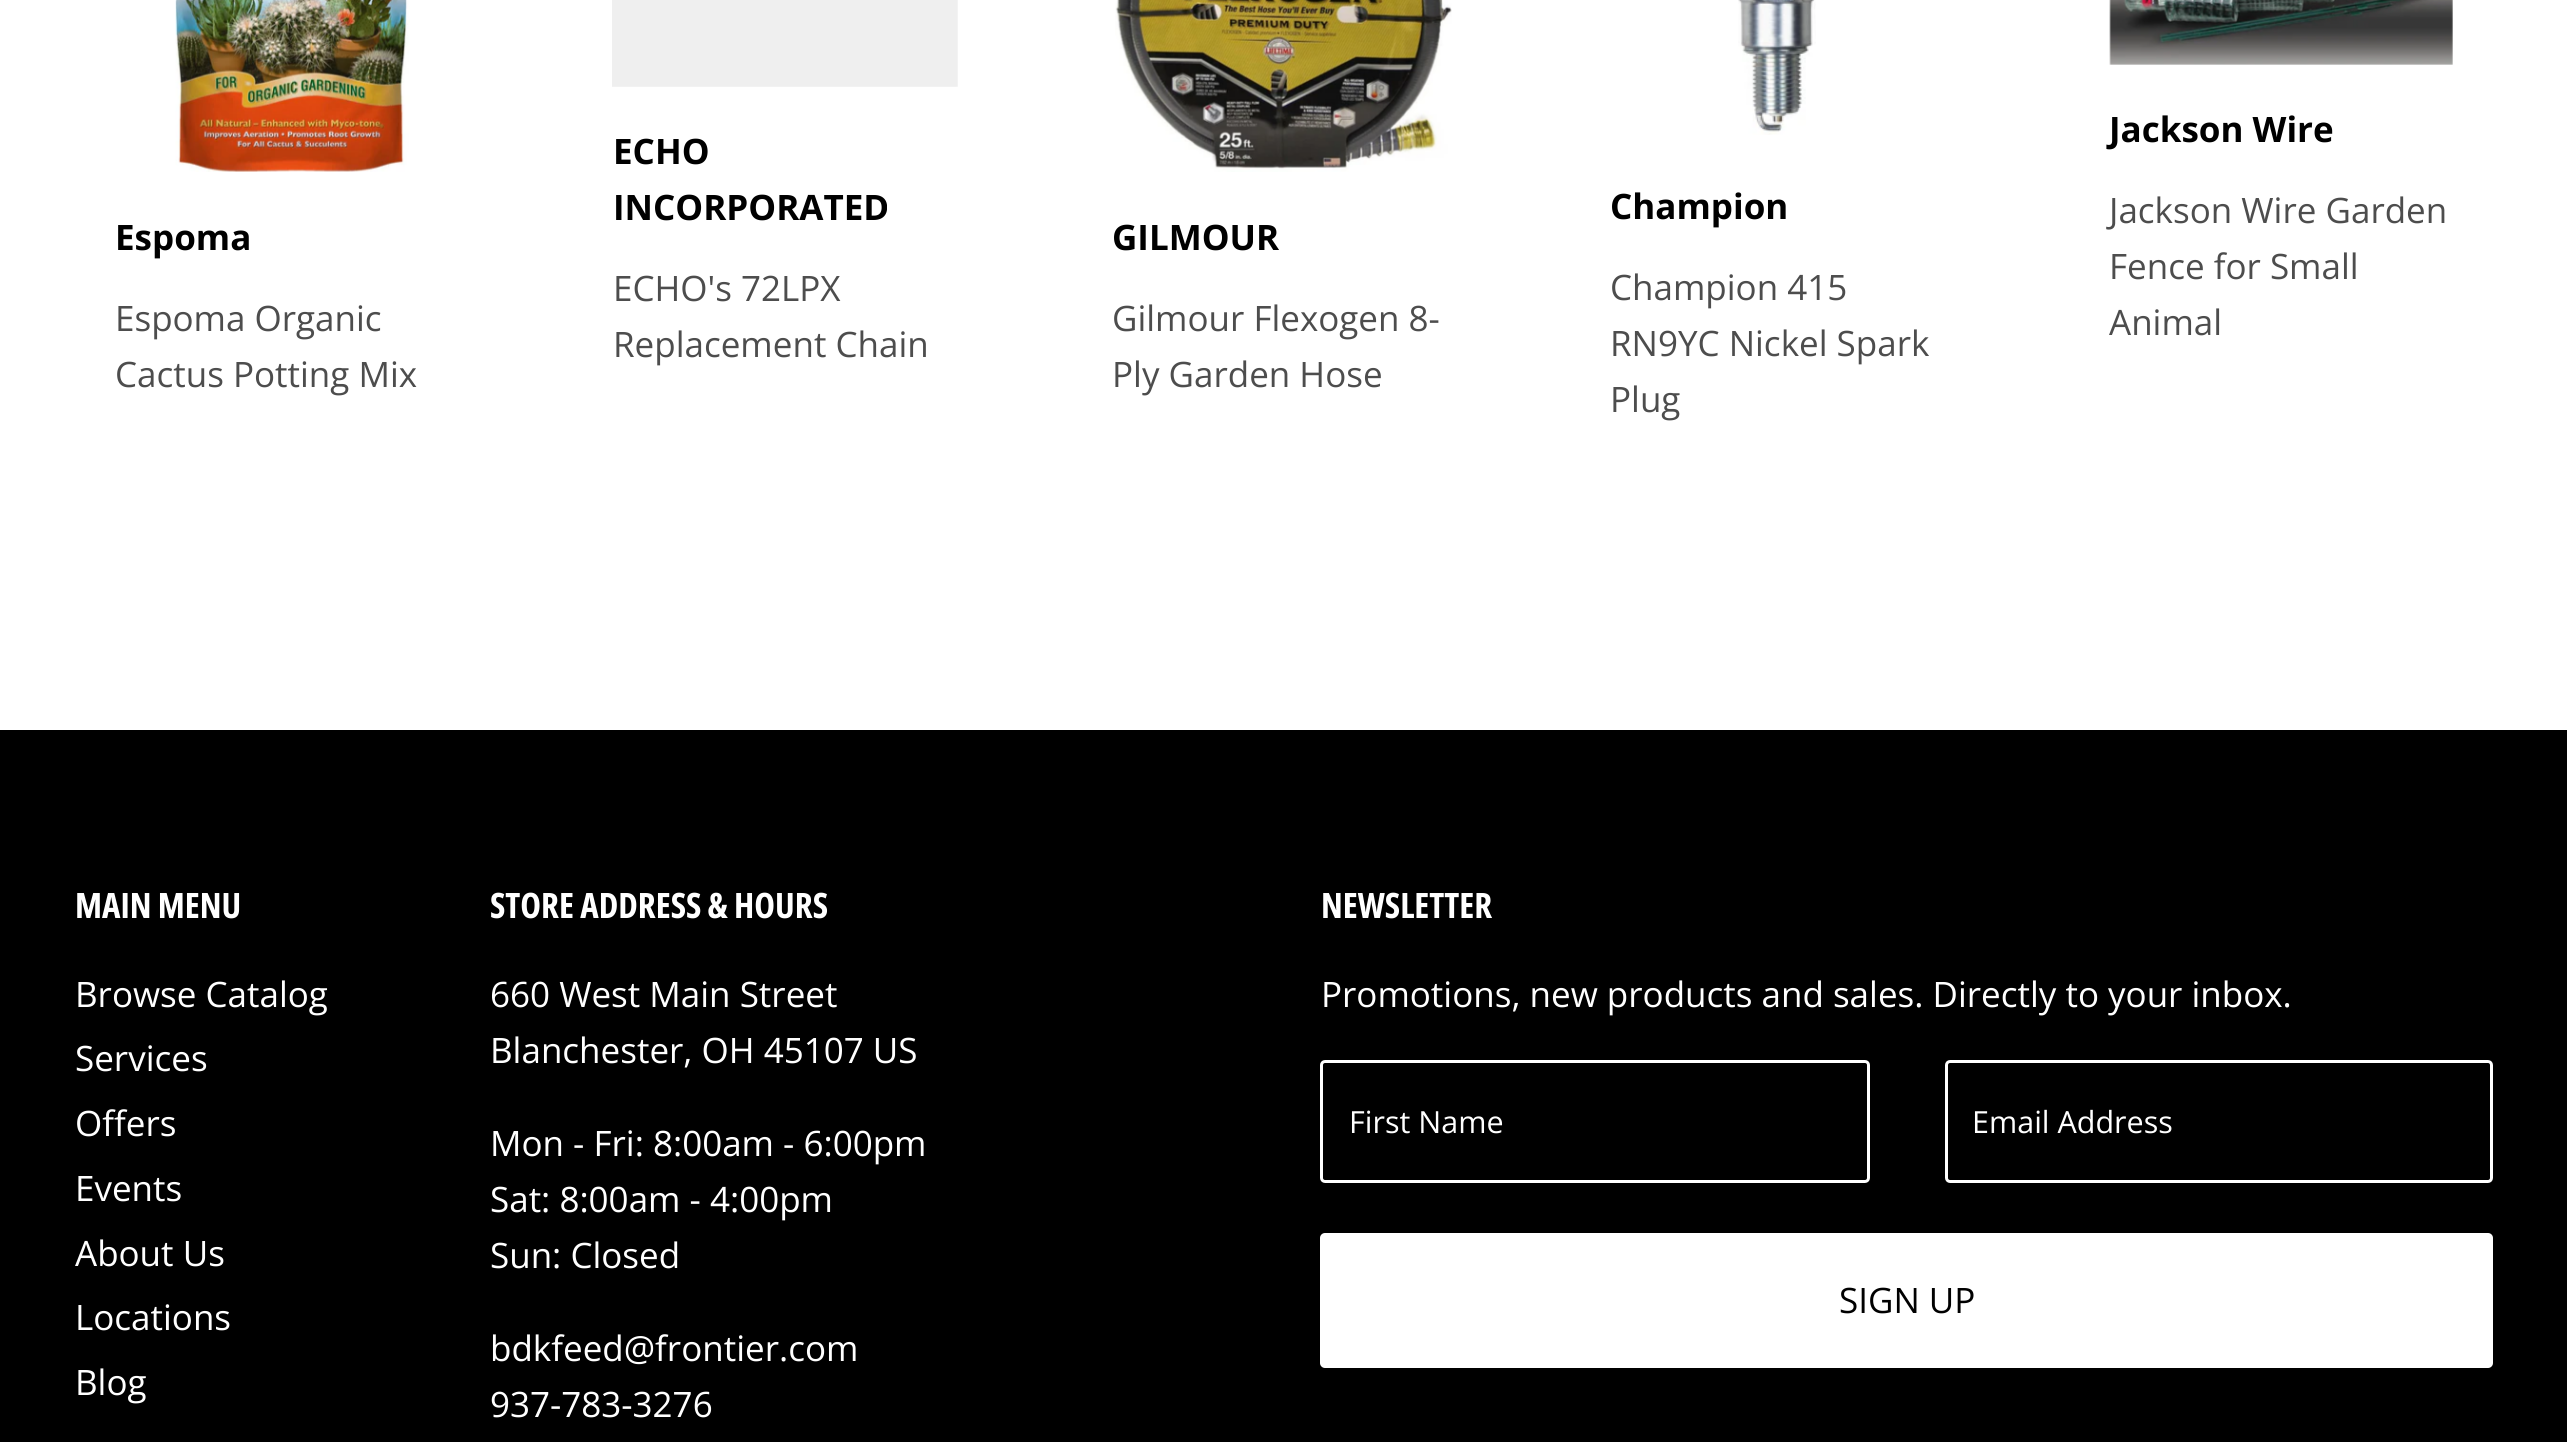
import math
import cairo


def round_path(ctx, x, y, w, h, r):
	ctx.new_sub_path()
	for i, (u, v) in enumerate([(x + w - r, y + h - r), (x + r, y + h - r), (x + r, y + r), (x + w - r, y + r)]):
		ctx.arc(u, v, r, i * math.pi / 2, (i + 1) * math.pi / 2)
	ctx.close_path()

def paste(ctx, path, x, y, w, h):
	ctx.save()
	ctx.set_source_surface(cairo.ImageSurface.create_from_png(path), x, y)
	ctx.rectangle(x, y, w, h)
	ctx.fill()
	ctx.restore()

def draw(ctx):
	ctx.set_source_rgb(1, 1, 1)
	ctx.paint()
	paste(ctx, 'media/1.png', 175, 0, 235, 172)
	ctx.select_font_face('Open Sans', cairo.FONT_SLANT_NORMAL, cairo.FONT_WEIGHT_BOLD)
	ctx.set_font_size(35)
	ctx.set_source_rgb(0, 0, 0)
	ctx.move_to(115, 250)
	ctx.show_text('Espoma')
	ctx.select_font_face('Open Sans')
	ctx.set_source_rgb(0.302, 0.302, 0.302)
	ctx.move_to(115, 331)
	ctx.show_text('Espoma Organic')
	ctx.move_to(115, 387)
	ctx.show_text('Cactus Potting Mix')
	paste(ctx, 'media/2.png', 612, 0, 346, 87)
	ctx.select_font_face('Open Sans', cairo.FONT_SLANT_NORMAL, cairo.FONT_WEIGHT_BOLD)
	ctx.set_source_rgb(0, 0, 0)
	ctx.move_to(613, 164)
	ctx.show_text('ECHO')
	ctx.move_to(613, 220)
	ctx.show_text('INCORPORATED')
	ctx.select_font_face('Open Sans')
	ctx.set_source_rgb(0.302, 0.302, 0.302)
	ctx.move_to(613, 301)
	ctx.show_text('ECHO\'s 72LPX')
	ctx.move_to(613, 357)
	ctx.show_text('Replacement Chain')
	paste(ctx, 'media/3.png', 1115, 0, 337, 172)
	ctx.select_font_face('Open Sans', cairo.FONT_SLANT_NORMAL, cairo.FONT_WEIGHT_BOLD)
	ctx.set_source_rgb(0, 0, 0)
	ctx.move_to(1112, 250)
	ctx.show_text('GILMOUR')
	ctx.select_font_face('Open Sans')
	ctx.set_source_rgb(0.302, 0.302, 0.302)
	ctx.move_to(1112, 331)
	ctx.show_text('Gilmour Flexogen 8-')
	ctx.move_to(1112, 387)
	ctx.show_text('Ply Garden Hose')
	paste(ctx, 'media/4.png', 1738, 0, 78, 135)
	ctx.select_font_face('Open Sans', cairo.FONT_SLANT_NORMAL, cairo.FONT_WEIGHT_BOLD)
	ctx.set_source_rgb(0, 0, 0)
	ctx.move_to(1610, 219)
	ctx.show_text('Champion')
	ctx.select_font_face('Open Sans')
	ctx.set_source_rgb(0.302, 0.302, 0.302)
	for x, y, s in [
		(1610, 300, 'Champion 415'),
		(1610, 356, 'RN9YC Nickel Spark'),
		(1610, 412, 'Plug'),
	]:
		ctx.move_to(x, y)
		ctx.show_text(s)
	paste(ctx, 'media/5.png', 2109, 0, 344, 65)
	ctx.select_font_face('Open Sans', cairo.FONT_SLANT_NORMAL, cairo.FONT_WEIGHT_BOLD)
	ctx.set_source_rgb(0, 0, 0)
	ctx.move_to(2109, 142)
	ctx.show_text('Jackson Wire')
	ctx.select_font_face('Open Sans')
	ctx.set_source_rgb(0.302, 0.302, 0.302)
	for x, y, s in [
		(2109, 223, 'Jackson Wire Garden'),
		(2109, 279, 'Fence for Small'),
		(2109, 335, 'Animal'),
	]:
		ctx.move_to(x, y)
		ctx.show_text(s)
	ctx.set_source_rgb(0, 0, 0)
	ctx.rectangle(0, 730, 2567, 712)
	ctx.fill()
	ctx.select_font_face('Open Sans Condensed', cairo.FONT_SLANT_NORMAL, cairo.FONT_WEIGHT_BOLD)
	ctx.set_source_rgb(1, 1, 1)
	ctx.move_to(75, 918)
	ctx.show_text('MAIN MENU')
	ctx.select_font_face('Open Sans')
	for x, y, s in [
		(75, 1007, 'Browse Catalog'),
		(75, 1071, 'Services'),
		(75, 1136, 'Offers'),
		(75, 1201, 'Events'),
		(75, 1266, 'About Us'),
		(75, 1330, 'Locations'),
		(75, 1395, 'Blog'),
	]:
		ctx.move_to(x, y)
		ctx.show_text(s)
	ctx.select_font_face('Open Sans Condensed', cairo.FONT_SLANT_NORMAL, cairo.FONT_WEIGHT_BOLD)
	ctx.move_to(490, 918)
	ctx.show_text('STORE ADDRESS & HOURS')
	ctx.select_font_face('Open Sans')
	for x, y, s in [
		(490, 1007, '660 West Main Street'),
		(490, 1063, 'Blanchester, OH 45107 US'),
		(490, 1156, 'Mon - Fri: 8:00am - 6:00pm'),
		(490, 1212, 'Sat: 8:00am - 4:00pm'),
		(490, 1268, 'Sun: Closed'),
		(490, 1361, 'bdkfeed@frontier.com'),
		(490, 1417, '937-783-3276'),
	]:
		ctx.move_to(x, y)
		ctx.show_text(s)
	ctx.select_font_face('Open Sans Condensed', cairo.FONT_SLANT_NORMAL, cairo.FONT_WEIGHT_BOLD)
	ctx.move_to(1321, 918)
	ctx.show_text('NEWSLETTER')
	ctx.select_font_face('Open Sans')
	ctx.move_to(1321, 1007)
	ctx.show_text('Promotions, new products and sales. Directly to your inbox.')
	round_path(ctx, 1321.5, 1061.5, 547, 120, 3.5)
	ctx.set_line_width(3)
	ctx.stroke()
	ctx.set_font_size(30.5)
	ctx.move_to(1349, 1133)
	ctx.show_text('First Name')
	round_path(ctx, 1946.5, 1061.5, 545, 120, 3.5)
	ctx.stroke()
	ctx.move_to(1972, 1133)
	ctx.show_text('Email Address')
	round_path(ctx, 1320, 1233, 1173, 135, 5)
	ctx.fill()
	ctx.set_font_size(35)
	ctx.set_source_rgb(0, 0, 0)
	ctx.move_to(1839, 1313)
	ctx.show_text('SIGN UP')


surface = cairo.ImageSurface(cairo.FORMAT_RGB24, 2567, 1442)
ctx = cairo.Context(surface)
options = cairo.FontOptions()
options.set_hint_metrics(cairo.HINT_METRICS_OFF)
options.set_hint_style(cairo.HINT_STYLE_NONE)
ctx.set_font_options(options)
ctx.set_miter_limit(4)
draw(ctx)
surface.write_to_png('image.png')
